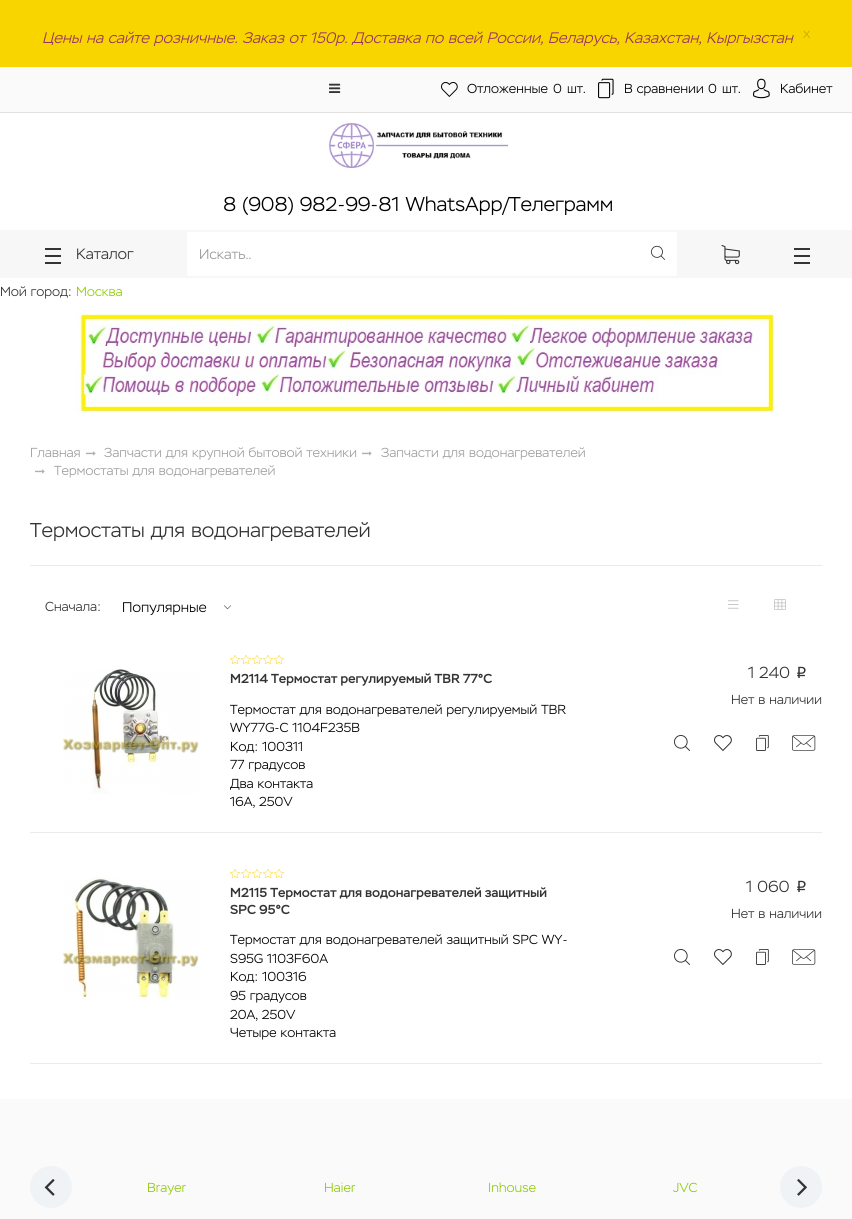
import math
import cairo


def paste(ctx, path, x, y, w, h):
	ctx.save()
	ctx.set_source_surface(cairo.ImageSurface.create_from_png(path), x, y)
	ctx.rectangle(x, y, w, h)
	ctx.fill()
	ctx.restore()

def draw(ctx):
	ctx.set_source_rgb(1, 1, 1)
	ctx.paint()
	ctx.set_source_rgb(0.976, 0.835, 0)
	ctx.rectangle(0, 0, 852, 67)
	ctx.fill()
	paste(ctx, 'media/1.png', 43, 31, 751, 16)
	paste(ctx, 'media/2.png', 803, 30, 7, 8)
	ctx.set_source_rgb(0.98, 0.98, 0.98)
	ctx.rectangle(0, 67, 852, 45)
	ctx.fill()
	ctx.set_source_rgb(0.894, 0.882, 0.882)
	ctx.rectangle(0, 112, 852, 1)
	ctx.fill()
	paste(ctx, 'media/3.png', 329, 83, 12, 10)
	paste(ctx, 'media/4.png', 441, 82, 17, 15)
	paste(ctx, 'media/5.png', 467, 83, 81, 11)
	paste(ctx, 'media/6.png', 553, 83, 9, 11)
	paste(ctx, 'media/7.png', 567, 86, 18, 7)
	paste(ctx, 'media/8.png', 598, 78, 16, 21)
	paste(ctx, 'media/9.png', 625, 83, 78, 13)
	paste(ctx, 'media/6.png', 708, 83, 9, 11)
	paste(ctx, 'media/7.png', 722, 86, 18, 7)
	paste(ctx, 'media/10.png', 753, 78, 17, 21)
	paste(ctx, 'media/11.png', 781, 83, 52, 11)
	paste(ctx, 'media/12.png', 329, 123, 179, 45)
	paste(ctx, 'media/13.png', 224, 196, 388, 20)
	ctx.set_source_rgb(0.965, 0.965, 0.965)
	ctx.rectangle(0, 230, 852, 48)
	ctx.fill()
	ctx.set_source_rgb(0.204, 0.204, 0.204)
	ctx.rectangle(45, 248, 16, 2)
	ctx.rectangle(45, 255, 16, 2)
	ctx.rectangle(45, 262, 16, 2)
	ctx.fill()
	paste(ctx, 'media/14.png', 77, 248, 57, 12)
	ctx.set_source_rgb(1, 1, 1)
	ctx.new_path()
	ctx.move_to(639, 232)
	ctx.line_to(675, 232)
	ctx.curve_to(676, 232, 677, 233, 677, 234)
	ctx.line_to(677, 274)
	ctx.curve_to(677, 275, 676, 276, 675, 276)
	ctx.line_to(639, 276)
	ctx.close_path()
	ctx.fill()
	ctx.new_path()
	ctx.move_to(189, 232)
	ctx.line_to(640, 232)
	ctx.line_to(640, 276)
	ctx.line_to(189, 276)
	ctx.curve_to(188, 276, 187, 275, 187, 274)
	ctx.line_to(187, 234)
	ctx.curve_to(187, 233, 188, 232, 189, 232)
	ctx.close_path()
	ctx.fill()
	paste(ctx, 'media/15.png', 200, 249, 51, 11)
	paste(ctx, 'media/16.png', 651, 245, 14, 15)
	paste(ctx, 'media/17.png', 721, 245, 19, 20)
	ctx.set_source_rgb(0.204, 0.204, 0.204)
	ctx.rectangle(794, 248, 16, 2)
	ctx.rectangle(794, 255, 16, 2)
	ctx.rectangle(794, 262, 16, 2)
	ctx.fill()
	paste(ctx, 'media/18.png', 1, 286, 70, 13)
	paste(ctx, 'media/19.png', 77, 286, 45, 11)
	paste(ctx, 'media/20.png', 76, 312, 700, 101)
	paste(ctx, 'media/21.png', 31, 447, 49, 11)
	paste(ctx, 'media/22.png', 86, 451, 10, 5)
	paste(ctx, 'media/23.png', 104, 447, 253, 13)
	paste(ctx, 'media/22.png', 362, 451, 10, 5)
	paste(ctx, 'media/24.png', 381, 447, 204, 13)
	paste(ctx, 'media/22.png', 35, 469, 10, 5)
	paste(ctx, 'media/25.png', 54, 465, 221, 13)
	paste(ctx, 'media/26.png', 30, 522, 340, 19)
	ctx.set_source_rgb(0.91, 0.925, 0.933)
	ctx.rectangle(30, 565, 792, 1)
	ctx.fill()
	paste(ctx, 'media/27.png', 45, 601, 55, 11)
	paste(ctx, 'media/28.png', 123, 602, 84, 13)
	paste(ctx, 'media/29.png', 224, 605, 7, 5)
	paste(ctx, 'media/30.png', 728, 600, 11, 9)
	paste(ctx, 'media/31.png', 774, 599, 12, 11)
	ctx.rectangle(30, 832, 792, 1)
	ctx.fill()
	paste(ctx, 'media/32.png', 62, 669, 137, 126)
	paste(ctx, 'media/33.png', 230, 655, 54, 9)
	paste(ctx, 'media/34.png', 230, 673, 262, 13)
	paste(ctx, 'media/35.png', 230, 704, 336, 13)
	paste(ctx, 'media/36.png', 230, 722, 130, 11)
	paste(ctx, 'media/37.png', 231, 741, 71, 12)
	paste(ctx, 'media/38.png', 230, 759, 75, 13)
	paste(ctx, 'media/39.png', 230, 778, 83, 12)
	paste(ctx, 'media/40.png', 230, 796, 63, 12)
	paste(ctx, 'media/41.png', 748, 666, 42, 13)
	ctx.select_font_face('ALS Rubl')
	ctx.set_font_size(16)
	ctx.set_source_rgb(0.204, 0.204, 0.204)
	ctx.move_to(794, 678)
	ctx.show_text('p')
	paste(ctx, 'media/42.png', 732, 694, 90, 11)
	paste(ctx, 'media/43.png', 674, 735, 16, 16)
	paste(ctx, 'media/44.png', 714, 735, 18, 16)
	paste(ctx, 'media/45.png', 756, 735, 13, 16)
	paste(ctx, 'media/46.png', 792, 735, 24, 16)
	ctx.set_source_rgb(0.91, 0.925, 0.933)
	ctx.rectangle(30, 1063, 792, 1)
	ctx.fill()
	paste(ctx, 'media/47.png', 62, 877, 137, 124)
	paste(ctx, 'media/33.png', 230, 869, 54, 9)
	paste(ctx, 'media/48.png', 230, 887, 317, 13)
	paste(ctx, 'media/49.png', 230, 904, 60, 11)
	paste(ctx, 'media/50.png', 230, 934, 337, 13)
	paste(ctx, 'media/51.png', 230, 953, 98, 11)
	paste(ctx, 'media/52.png', 231, 971, 76, 12)
	paste(ctx, 'media/53.png', 230, 990, 77, 13)
	paste(ctx, 'media/54.png', 230, 1009, 66, 12)
	paste(ctx, 'media/55.png', 230, 1027, 106, 13)
	paste(ctx, 'media/56.png', 746, 880, 43, 13)
	ctx.set_source_rgb(0.204, 0.204, 0.204)
	ctx.move_to(794, 892)
	ctx.show_text('p')
	paste(ctx, 'media/42.png', 732, 908, 90, 11)
	paste(ctx, 'media/43.png', 674, 949, 16, 16)
	paste(ctx, 'media/44.png', 714, 949, 18, 16)
	paste(ctx, 'media/45.png', 756, 949, 13, 16)
	paste(ctx, 'media/46.png', 792, 949, 24, 16)
	ctx.set_source_rgb(0.98, 0.98, 0.98)
	ctx.rectangle(0, 1099, 852, 120)
	ctx.fill()
	ctx.set_source_rgb(0.941, 0.953, 0.961)
	ctx.arc(51, 1187, 21, 0, 2 * math.pi)
	ctx.fill()
	paste(ctx, 'media/57.png', 44, 1179, 11, 17)
	paste(ctx, 'media/58.png', 148, 1182, 38, 13)
	paste(ctx, 'media/59.png', 325, 1182, 31, 11)
	paste(ctx, 'media/60.png', 489, 1182, 47, 11)
	paste(ctx, 'media/61.png', 673, 1182, 25, 11)
	ctx.arc(801, 1187, 21, 0, 2 * math.pi)
	ctx.fill()
	paste(ctx, 'media/62.png', 797, 1179, 10, 17)


surface = cairo.ImageSurface(cairo.FORMAT_RGB24, 852, 1219)
ctx = cairo.Context(surface)
options = cairo.FontOptions()
options.set_hint_metrics(cairo.HINT_METRICS_OFF)
options.set_hint_style(cairo.HINT_STYLE_NONE)
ctx.set_font_options(options)
ctx.set_miter_limit(4)
draw(ctx)
surface.write_to_png('image.png')
